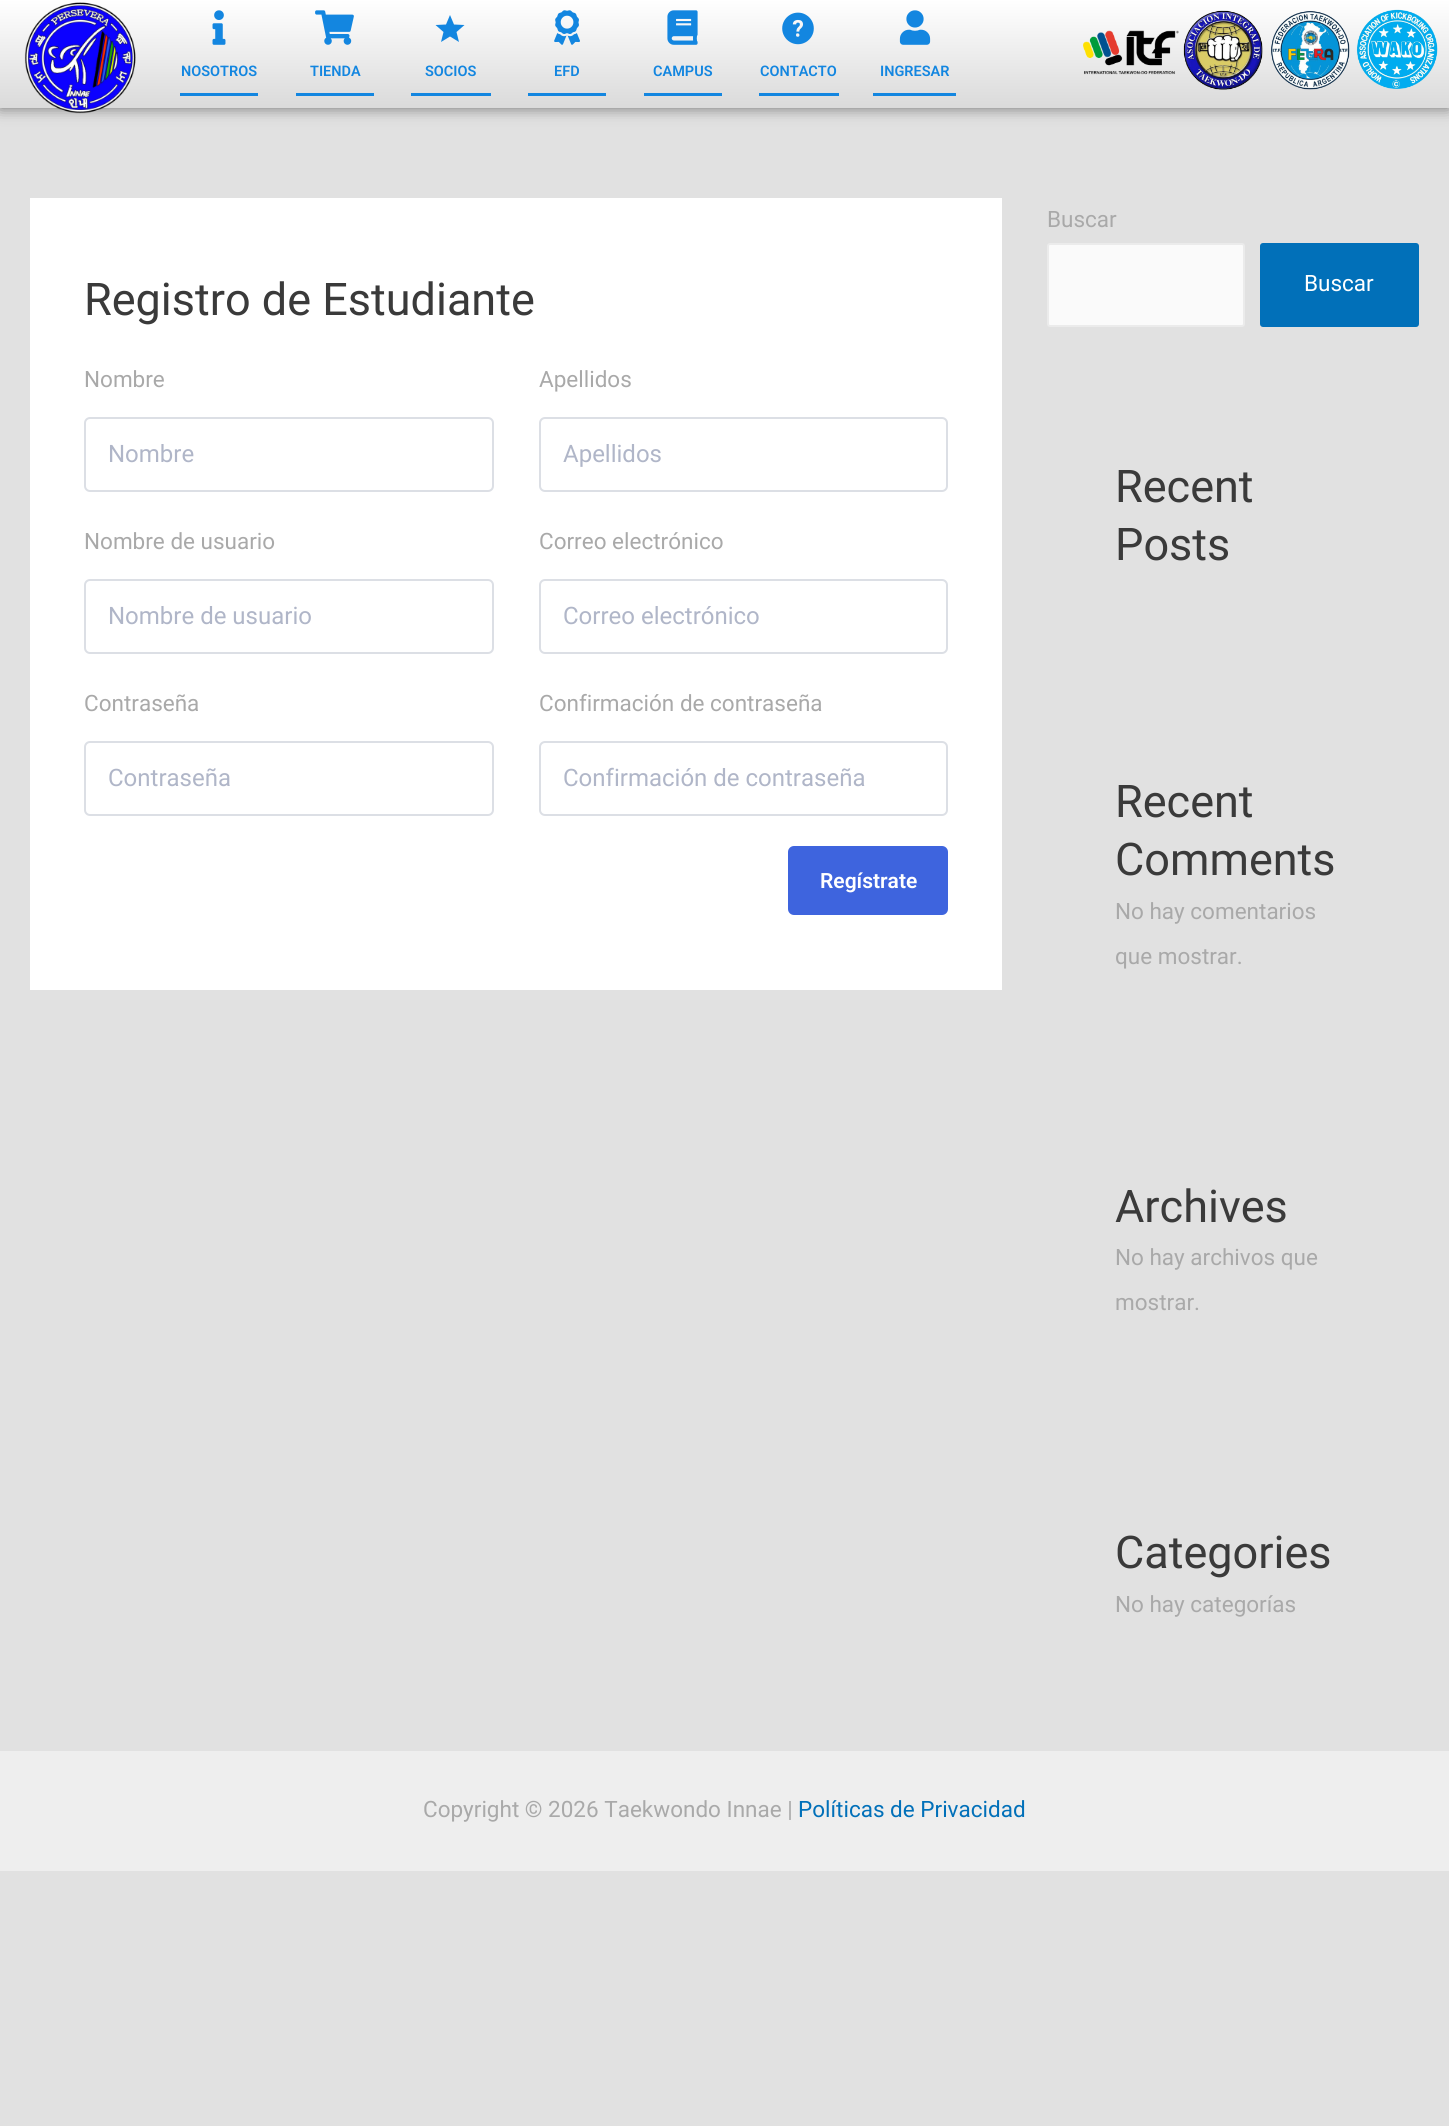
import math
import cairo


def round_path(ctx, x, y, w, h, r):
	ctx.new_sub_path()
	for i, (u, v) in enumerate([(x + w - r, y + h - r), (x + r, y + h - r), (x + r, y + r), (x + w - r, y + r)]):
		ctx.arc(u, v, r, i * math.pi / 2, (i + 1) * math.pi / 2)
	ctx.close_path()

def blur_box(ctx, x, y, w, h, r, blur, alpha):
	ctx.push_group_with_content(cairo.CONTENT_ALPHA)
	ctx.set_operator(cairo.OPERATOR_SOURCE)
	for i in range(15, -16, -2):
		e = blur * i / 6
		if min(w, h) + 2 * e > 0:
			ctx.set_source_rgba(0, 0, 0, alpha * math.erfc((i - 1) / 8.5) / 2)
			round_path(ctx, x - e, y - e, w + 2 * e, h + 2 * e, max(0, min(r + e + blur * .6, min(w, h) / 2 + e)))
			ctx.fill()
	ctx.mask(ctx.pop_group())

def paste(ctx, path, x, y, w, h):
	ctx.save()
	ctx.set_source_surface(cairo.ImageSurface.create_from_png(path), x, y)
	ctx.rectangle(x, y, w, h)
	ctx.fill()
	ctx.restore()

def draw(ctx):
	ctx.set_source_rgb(0.882, 0.882, 0.882)
	ctx.paint()
	ctx.set_source_rgb(0, 0, 0)
	blur_box(ctx, 0, 0, 1449, 108, 0, 7.5, 0.5)
	gradient = cairo.LinearGradient(725, 0, 725, 108)
	gradient.add_color_stop_rgba(0, 1, 1, 1, 1)
	gradient.add_color_stop_rgba(1, 0.855, 0.855, 0.855, 1)
	ctx.set_source(gradient)
	ctx.rectangle(0, 0, 1449, 108)
	ctx.fill()
	paste(ctx, 'media/1.png', 24, 2, 112, 112)
	paste(ctx, 'media/2.png', 212, 10, 14, 35)
	ctx.select_font_face('Roboto SemiBold')
	ctx.set_font_size(14.5)
	ctx.set_source_rgb(0.075, 0.525, 0.878)
	ctx.move_to(181, 76)
	ctx.show_text('NOSOTROS')
	ctx.rectangle(180, 93, 78, 3)
	ctx.fill()
	paste(ctx, 'media/3.png', 315, 10, 39, 35)
	ctx.move_to(310, 76)
	ctx.show_text('TIENDA')
	ctx.rectangle(296, 93, 78, 3)
	ctx.fill()
	ctx.new_path()
	ctx.move_to(450, 36.5)
	ctx.line_to(441, 42)
	ctx.line_to(443.5, 32)
	ctx.line_to(435.5, 25)
	ctx.line_to(446, 24.5)
	ctx.line_to(450, 15)
	ctx.line_to(454, 24.5)
	ctx.line_to(464.5, 25)
	ctx.line_to(456.5, 32)
	ctx.line_to(459, 42)
	ctx.close_path()
	ctx.fill()
	ctx.move_to(425, 76)
	ctx.show_text('SOCIOS')
	ctx.rectangle(411, 93, 80, 3)
	ctx.fill()
	paste(ctx, 'media/4.png', 554, 10, 26, 35)
	ctx.move_to(554, 76)
	ctx.show_text('EFD')
	ctx.rectangle(528, 93, 78, 3)
	ctx.fill()
	paste(ctx, 'media/5.png', 667, 10, 31, 35)
	ctx.move_to(653, 76)
	ctx.show_text('CAMPUS')
	ctx.rectangle(644, 93, 78, 3)
	ctx.fill()
	paste(ctx, 'media/6.png', 782, 12, 32, 33)
	ctx.move_to(760, 76)
	ctx.show_text('CONTACTO')
	ctx.rectangle(759, 93, 80, 3)
	ctx.fill()
	paste(ctx, 'media/7.png', 899, 10, 32, 35)
	ctx.move_to(880, 76)
	ctx.show_text('INGRESAR')
	ctx.rectangle(873, 93, 83, 3)
	ctx.fill()
	paste(ctx, 'media/8.png', 1083, 30, 96, 45)
	paste(ctx, 'media/9.png', 1183, 10, 80, 80)
	paste(ctx, 'media/10.png', 1271, 11, 79, 79)
	paste(ctx, 'media/11.png', 1356, 9, 82, 80)
	ctx.set_source_rgb(1, 1, 1)
	ctx.rectangle(30, 198, 972, 792)
	ctx.fill()
	ctx.select_font_face('Roboto')
	ctx.set_font_size(45)
	ctx.set_source_rgb(0.227, 0.227, 0.227)
	ctx.move_to(84, 315)
	ctx.show_text('Registro de Estudiante')
	ctx.set_font_size(22.5)
	ctx.set_source_rgb(0.663, 0.663, 0.663)
	ctx.move_to(84, 387)
	ctx.show_text('Nombre')
	round_path(ctx, 85, 418, 408, 73, 5)
	ctx.set_source_rgb(0.863, 0.875, 0.898)
	ctx.stroke()
	ctx.set_font_size(24)
	ctx.set_source_rgb(0.69, 0.714, 0.784)
	ctx.move_to(108, 462)
	ctx.show_text('Nombre')
	ctx.set_font_size(22.5)
	ctx.set_source_rgb(0.663, 0.663, 0.663)
	ctx.move_to(539, 387)
	ctx.show_text('Apellidos')
	round_path(ctx, 540, 418, 407, 73, 5)
	ctx.set_source_rgb(0.863, 0.875, 0.898)
	ctx.stroke()
	ctx.set_font_size(24)
	ctx.set_source_rgb(0.69, 0.714, 0.784)
	ctx.move_to(563, 462)
	ctx.show_text('Apellidos')
	ctx.set_font_size(22.5)
	ctx.set_source_rgb(0.663, 0.663, 0.663)
	ctx.move_to(84, 549)
	ctx.show_text('Nombre de usuario')
	round_path(ctx, 85, 580, 408, 73, 5)
	ctx.set_source_rgb(0.863, 0.875, 0.898)
	ctx.stroke()
	ctx.set_font_size(24)
	ctx.set_source_rgb(0.69, 0.714, 0.784)
	ctx.move_to(108, 624)
	ctx.show_text('Nombre de usuario')
	ctx.set_font_size(22.5)
	ctx.set_source_rgb(0.663, 0.663, 0.663)
	ctx.move_to(539, 549)
	ctx.show_text('Correo electrónico')
	round_path(ctx, 540, 580, 407, 73, 5)
	ctx.set_source_rgb(0.863, 0.875, 0.898)
	ctx.stroke()
	ctx.set_font_size(24)
	ctx.set_source_rgb(0.69, 0.714, 0.784)
	ctx.move_to(563, 624)
	ctx.show_text('Correo electrónico')
	ctx.set_font_size(22.5)
	ctx.set_source_rgb(0.663, 0.663, 0.663)
	ctx.move_to(84, 711)
	ctx.show_text('Contraseña')
	round_path(ctx, 85, 742, 408, 73, 5)
	ctx.set_source_rgb(0.863, 0.875, 0.898)
	ctx.stroke()
	ctx.set_font_size(24)
	ctx.set_source_rgb(0.69, 0.714, 0.784)
	ctx.move_to(108, 786)
	ctx.show_text('Contraseña')
	ctx.set_font_size(22.5)
	ctx.set_source_rgb(0.663, 0.663, 0.663)
	ctx.move_to(539, 711)
	ctx.show_text('Confirmación de contraseña')
	round_path(ctx, 540, 742, 407, 73, 5)
	ctx.set_source_rgb(0.863, 0.875, 0.898)
	ctx.stroke()
	ctx.set_font_size(24)
	ctx.set_source_rgb(0.69, 0.714, 0.784)
	ctx.move_to(563, 786)
	ctx.show_text('Confirmación de contraseña')
	ctx.set_source_rgb(0.243, 0.392, 0.871)
	round_path(ctx, 789, 847, 158, 67, 5)
	ctx.fill_preserve()
	ctx.stroke()
	ctx.select_font_face('Roboto SemiBold')
	ctx.set_font_size(21)
	ctx.set_source_rgb(1, 1, 1)
	ctx.move_to(820, 888)
	ctx.show_text('Regístrate')
	ctx.select_font_face('Roboto')
	ctx.set_font_size(22.5)
	ctx.set_source_rgb(0.663, 0.663, 0.663)
	ctx.move_to(1047, 227)
	ctx.show_text('Buscar')
	ctx.set_source_rgb(0.98, 0.98, 0.98)
	round_path(ctx, 1048, 244, 196, 82, 2)
	ctx.fill_preserve()
	ctx.set_source_rgb(0.918, 0.918, 0.918)
	ctx.stroke()
	ctx.set_source_rgb(0.004, 0.439, 0.725)
	round_path(ctx, 1260, 243, 159, 84, 3)
	ctx.fill()
	ctx.set_source_rgb(1, 1, 1)
	ctx.move_to(1304, 291)
	ctx.show_text('Buscar')
	ctx.set_font_size(45)
	ctx.set_source_rgb(0.227, 0.227, 0.227)
	for x, y, s in [
		(1115, 502, 'Recent'),
		(1115, 560, 'Posts'),
		(1115, 817, 'Recent'),
		(1115, 875, 'Comments'),
	]:
		ctx.move_to(x, y)
		ctx.show_text(s)
	ctx.set_font_size(22.5)
	ctx.set_source_rgb(0.663, 0.663, 0.663)
	ctx.move_to(1115, 919)
	ctx.show_text('No hay comentarios')
	ctx.move_to(1115, 964)
	ctx.show_text('que mostrar.')
	ctx.set_font_size(45)
	ctx.set_source_rgb(0.227, 0.227, 0.227)
	ctx.move_to(1115, 1222)
	ctx.show_text('Archives')
	ctx.set_font_size(22.5)
	ctx.set_source_rgb(0.663, 0.663, 0.663)
	ctx.move_to(1115, 1265)
	ctx.show_text('No hay archivos que')
	ctx.move_to(1115, 1310)
	ctx.show_text('mostrar.')
	ctx.set_font_size(45)
	ctx.set_source_rgb(0.227, 0.227, 0.227)
	ctx.move_to(1115, 1568)
	ctx.show_text('Categories')
	ctx.set_font_size(22.5)
	ctx.set_source_rgb(0.663, 0.663, 0.663)
	ctx.move_to(1115, 1612)
	ctx.show_text('No hay categorías')
	ctx.set_source_rgb(0.933, 0.933, 0.933)
	ctx.rectangle(0, 1751, 1449, 120)
	ctx.fill()
	ctx.set_source_rgb(0.663, 0.663, 0.663)
	ctx.move_to(423, 1817)
	ctx.show_text('Copyright © 2026 Taekwondo Innae |')
	ctx.set_source_rgb(0.004, 0.439, 0.725)
	ctx.move_to(798, 1817)
	ctx.show_text('Políticas de Privacidad')


surface = cairo.ImageSurface(cairo.FORMAT_RGB24, 1449, 2126)
ctx = cairo.Context(surface)
options = cairo.FontOptions()
options.set_hint_metrics(cairo.HINT_METRICS_OFF)
options.set_hint_style(cairo.HINT_STYLE_NONE)
ctx.set_font_options(options)
ctx.set_miter_limit(4)
draw(ctx)
surface.write_to_png('image.png')
